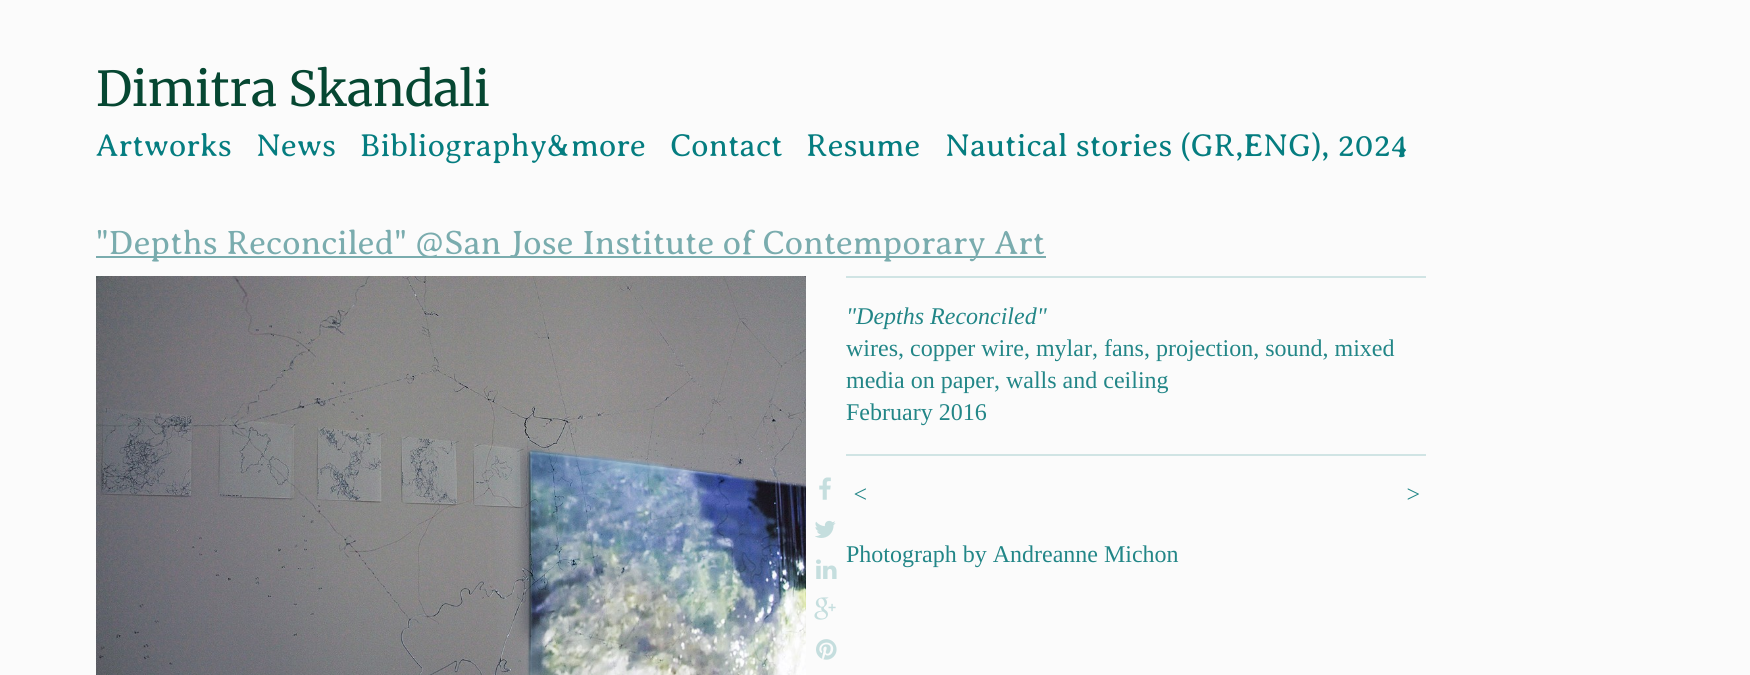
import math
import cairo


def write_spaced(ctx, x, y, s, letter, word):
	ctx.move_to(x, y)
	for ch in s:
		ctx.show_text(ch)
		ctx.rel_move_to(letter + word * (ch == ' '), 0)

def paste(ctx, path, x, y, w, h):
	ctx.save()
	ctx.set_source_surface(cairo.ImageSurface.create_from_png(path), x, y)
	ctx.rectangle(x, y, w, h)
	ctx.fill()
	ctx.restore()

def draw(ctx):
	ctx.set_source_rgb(0.984, 0.984, 0.984)
	ctx.paint()
	ctx.select_font_face('Merriweather Light')
	ctx.set_font_size(48)
	ctx.set_source_rgb(0.024, 0.278, 0.196)
	ctx.move_to(96, 106)
	ctx.show_text('Dimitra Skandali')
	ctx.select_font_face('Averia Serif Libre Light')
	ctx.set_font_size(32)
	ctx.set_source_rgb(0.02, 0.49, 0.502)
	for x, y, s in [
		(96, 156, 'Artworks'),
		(256, 156, 'News'),
		(360, 156, 'Bibliography&more'),
		(670, 156, 'Contact'),
		(806, 156, 'Resume'),
		(945, 156, 'Nautical stories (GR,ENG), 2024'),
	]:
		ctx.move_to(x, y)
		ctx.show_text(s)
	ctx.set_source_rgb(0.478, 0.675, 0.682)
	ctx.rectangle(96, 256, 950, 2)
	ctx.fill()
	ctx.set_font_size(34)
	ctx.move_to(96, 254)
	ctx.show_text('"Depths Reconciled" @San Jose Institute of Contemporary Art')
	paste(ctx, 'media/1.png', 96, 276, 710, 399)
	paste(ctx, 'media/2.png', 819, 477, 12, 23)
	paste(ctx, 'media/3.png', 815, 520, 21, 18)
	paste(ctx, 'media/4.png', 816, 559, 21, 20)
	paste(ctx, 'media/5.png', 814, 597, 22, 23)
	paste(ctx, 'media/6.png', 816, 639, 21, 21)
	ctx.set_source_rgb(0.816, 0.894, 0.894)
	ctx.rectangle(846, 276, 580, 2)
	ctx.fill()
	ctx.select_font_face('Liberation Serif', cairo.FONT_SLANT_ITALIC)
	ctx.set_font_size(24)
	ctx.set_source_rgb(0.133, 0.525, 0.529)
	ctx.move_to(846, 324)
	ctx.show_text('"Depths Reconciled"')
	ctx.select_font_face('Liberation Serif')
	for x, y, s in [
		(846, 356, 'wires, copper wire, mylar, fans, projection, sound, mixed'),
		(846, 388, 'media on paper, walls and ceiling'),
		(846, 420, 'February 2016'),
	]:
		ctx.move_to(x, y)
		ctx.show_text(s)
	ctx.set_source_rgb(0.816, 0.894, 0.894)
	ctx.rectangle(846, 454, 580, 2)
	ctx.fill()
	ctx.select_font_face('Liberation Serif', cairo.FONT_SLANT_ITALIC)
	ctx.set_source_rgb(0.133, 0.525, 0.529)
	write_spaced(ctx, 852, 502, '<', 2, 0)
	write_spaced(ctx, 1405, 502, '>', 2, 0)
	ctx.select_font_face('Liberation Serif')
	ctx.move_to(846, 562)
	ctx.show_text('Photograph by Andreanne Michon')


surface = cairo.ImageSurface(cairo.FORMAT_RGB24, 1750, 675)
ctx = cairo.Context(surface)
options = cairo.FontOptions()
options.set_hint_metrics(cairo.HINT_METRICS_OFF)
options.set_hint_style(cairo.HINT_STYLE_NONE)
ctx.set_font_options(options)
ctx.set_miter_limit(4)
draw(ctx)
surface.write_to_png('image.png')
